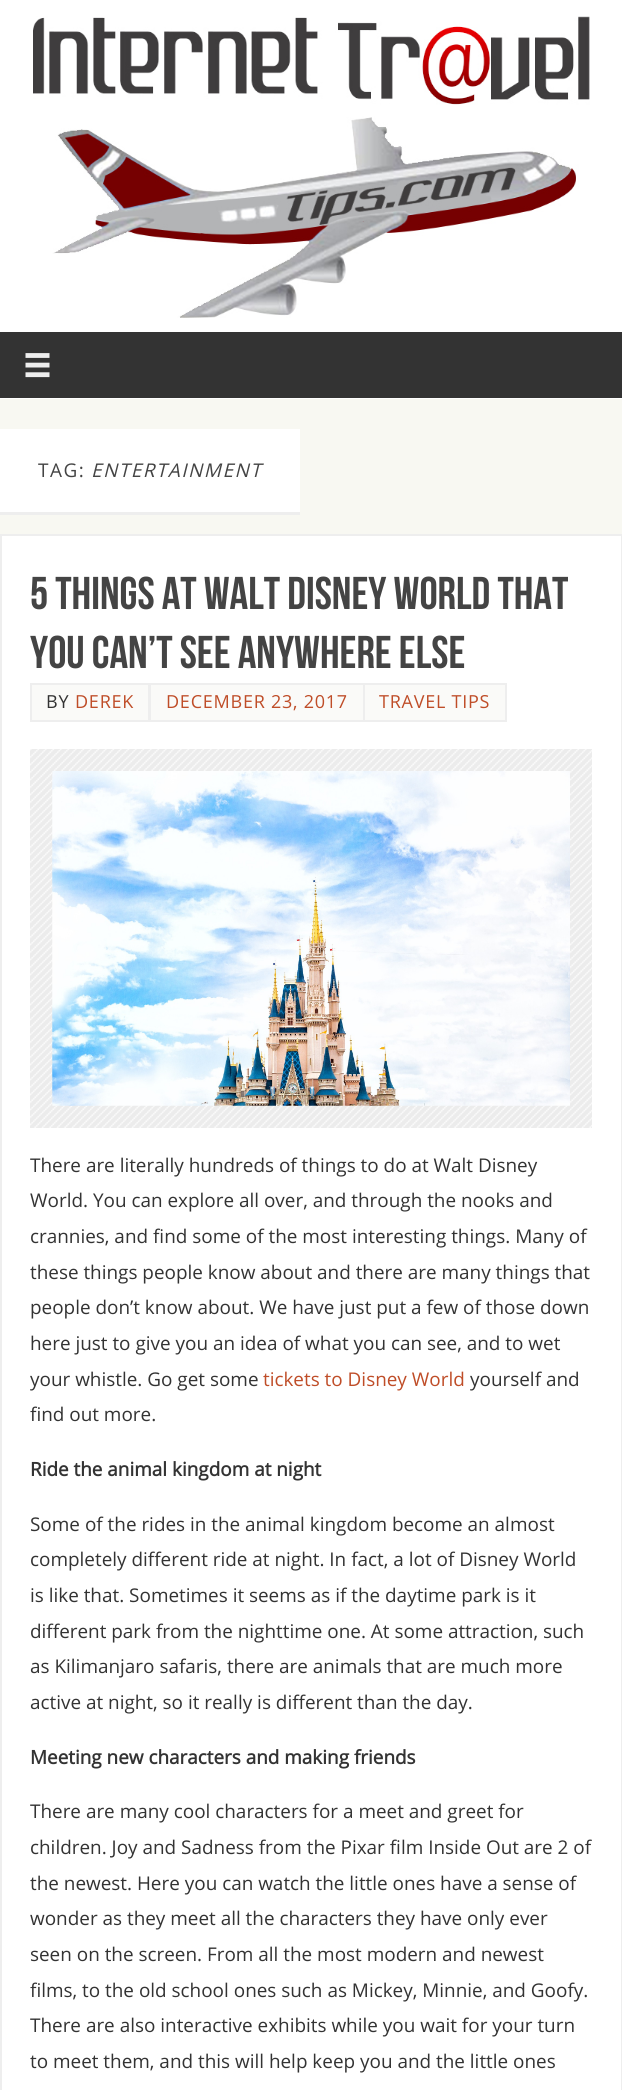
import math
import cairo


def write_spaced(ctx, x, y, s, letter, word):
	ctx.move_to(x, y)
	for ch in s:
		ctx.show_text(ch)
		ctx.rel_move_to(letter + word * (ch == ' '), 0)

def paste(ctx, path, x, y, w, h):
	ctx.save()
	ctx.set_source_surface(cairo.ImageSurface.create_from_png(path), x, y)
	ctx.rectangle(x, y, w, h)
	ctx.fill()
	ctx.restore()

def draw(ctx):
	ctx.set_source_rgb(0.969, 0.969, 0.949)
	ctx.paint()
	ctx.set_source_rgb(1, 1, 1)
	ctx.rectangle(0, 0, 622, 399)
	ctx.fill()
	paste(ctx, 'media/1.png', 33, 16, 557, 302)
	ctx.set_source_rgb(0.2, 0.2, 0.2)
	ctx.rectangle(0, 332, 622, 66)
	ctx.fill()
	paste(ctx, 'media/2.png', 25, 353, 25, 25)
	ctx.set_source_rgb(1, 1, 1)
	ctx.rectangle(0, 429, 300, 83)
	ctx.fill()
	ctx.set_source_rgb(0.933, 0.933, 0.933)
	ctx.rectangle(0, 512, 300, 3)
	ctx.fill()
	ctx.select_font_face('Open Sans')
	ctx.set_font_size(18.9)
	ctx.set_source_rgb(0.267, 0.267, 0.267)
	write_spaced(ctx, 38, 477, 'TAG:', 1.5, 0)
	ctx.select_font_face('Open Sans', cairo.FONT_SLANT_ITALIC)
	write_spaced(ctx, 91, 477, 'ENTERTAINMENT', 1.5, 0)
	ctx.set_source_rgb(1, 1, 1)
	ctx.rectangle(1, 535, 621, 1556)
	ctx.fill_preserve()
	ctx.set_source_rgb(0.933, 0.933, 0.933)
	ctx.stroke()
	ctx.select_font_face('Bebas Neue')
	ctx.set_font_size(45.9)
	ctx.set_source_rgb(0.267, 0.267, 0.267)
	ctx.move_to(30, 609)
	ctx.show_text('5 things at Walt Disney World that')
	ctx.move_to(30, 668)
	ctx.show_text('you can’t see anywhere else')
	ctx.set_source_rgb(0.98, 0.98, 0.969)
	ctx.rectangle(31, 684, 118, 37)
	ctx.fill_preserve()
	ctx.set_source_rgb(0.933, 0.933, 0.933)
	ctx.stroke()
	ctx.select_font_face('Open Sans')
	ctx.set_font_size(18)
	ctx.set_source_rgb(0.2, 0.2, 0.2)
	write_spaced(ctx, 46, 708, 'BY', 0.75, 0)
	ctx.set_source_rgb(0.749, 0.302, 0.157)
	write_spaced(ctx, 75, 708, 'DEREK', 0.75, 0)
	ctx.set_source_rgb(0.98, 0.98, 0.969)
	ctx.rectangle(150, 684, 214, 37)
	ctx.fill_preserve()
	ctx.set_source_rgb(0.933, 0.933, 0.933)
	ctx.stroke()
	ctx.set_source_rgb(0.749, 0.302, 0.157)
	write_spaced(ctx, 166, 708, 'DECEMBER 23, 2017', 0.75, 0)
	ctx.set_source_rgb(0.98, 0.98, 0.969)
	ctx.rectangle(364, 684, 142, 37)
	ctx.fill_preserve()
	ctx.set_source_rgb(0.933, 0.933, 0.933)
	ctx.stroke()
	ctx.set_source_rgb(0.749, 0.302, 0.157)
	write_spaced(ctx, 379, 708, 'TRAVEL TIPS', 0.75, 0)
	paste(ctx, 'media/3.png', 30, 749, 562, 379)
	paste(ctx, 'media/4.png', 52, 774, 518, 332)
	ctx.set_font_size(18.9)
	ctx.set_source_rgb(0.2, 0.2, 0.2)
	for x, y, s in [
		(30, 1172, 'There are literally hundreds of things to do at Walt Disney'),
		(30, 1207, 'World. You can explore all over, and through the nooks and'),
		(30, 1243, 'crannies, and find some of the most interesting things. Many of'),
		(30, 1279, 'these things people know about and there are many things that'),
		(30, 1314, 'people don’t know about. We have just put a few of those down'),
		(30, 1350, 'here just to give you an idea of what you can see, and to wet'),
		(30, 1386, 'your whistle. Go get some'),
	]:
		ctx.move_to(x, y)
		ctx.show_text(s)
	ctx.set_source_rgb(0.749, 0.302, 0.157)
	ctx.move_to(263, 1386)
	ctx.show_text('tickets to Disney World')
	ctx.set_source_rgb(0.2, 0.2, 0.2)
	ctx.move_to(470, 1386)
	ctx.show_text('yourself and')
	ctx.move_to(30, 1421)
	ctx.show_text('find out more.')
	ctx.select_font_face('Open Sans', cairo.FONT_SLANT_NORMAL, cairo.FONT_WEIGHT_BOLD)
	ctx.move_to(30, 1476)
	ctx.show_text('Ride the animal kingdom at night')
	ctx.select_font_face('Open Sans')
	for x, y, s in [
		(30, 1531, 'Some of the rides in the animal kingdom become an almost'),
		(30, 1566, 'completely different ride at night. In fact, a lot of Disney World'),
		(30, 1602, 'is like that. Sometimes it seems as if the daytime park is it'),
		(30, 1638, 'different park from the nighttime one. At some attraction, such'),
		(30, 1673, 'as Kilimanjaro safaris, there are animals that are much more'),
		(30, 1709, 'active at night, so it really is different than the day.'),
	]:
		ctx.move_to(x, y)
		ctx.show_text(s)
	ctx.select_font_face('Open Sans', cairo.FONT_SLANT_NORMAL, cairo.FONT_WEIGHT_BOLD)
	ctx.move_to(30, 1764)
	ctx.show_text('Meeting new characters and making friends')
	ctx.select_font_face('Open Sans')
	for x, y, s in [
		(30, 1818, 'There are many cool characters for a meet and greet for'),
		(30, 1854, 'children. Joy and Sadness from the Pixar film Inside Out are 2 of'),
		(30, 1890, 'the newest. Here you can watch the little ones have a sense of'),
		(30, 1925, 'wonder as they meet all the characters they have only ever'),
		(30, 1961, 'seen on the screen. From all the most modern and newest'),
		(30, 1997, 'films, to the old school ones such as Mickey, Minnie, and Goofy.'),
		(30, 2032, 'There are also interactive exhibits while you wait for your turn'),
		(30, 2068, 'to meet them, and this will help keep you and the little ones'),
	]:
		ctx.move_to(x, y)
		ctx.show_text(s)


surface = cairo.ImageSurface(cairo.FORMAT_RGB24, 622, 2090)
ctx = cairo.Context(surface)
options = cairo.FontOptions()
options.set_hint_metrics(cairo.HINT_METRICS_OFF)
options.set_hint_style(cairo.HINT_STYLE_NONE)
ctx.set_font_options(options)
ctx.set_miter_limit(4)
draw(ctx)
surface.write_to_png('image.png')
